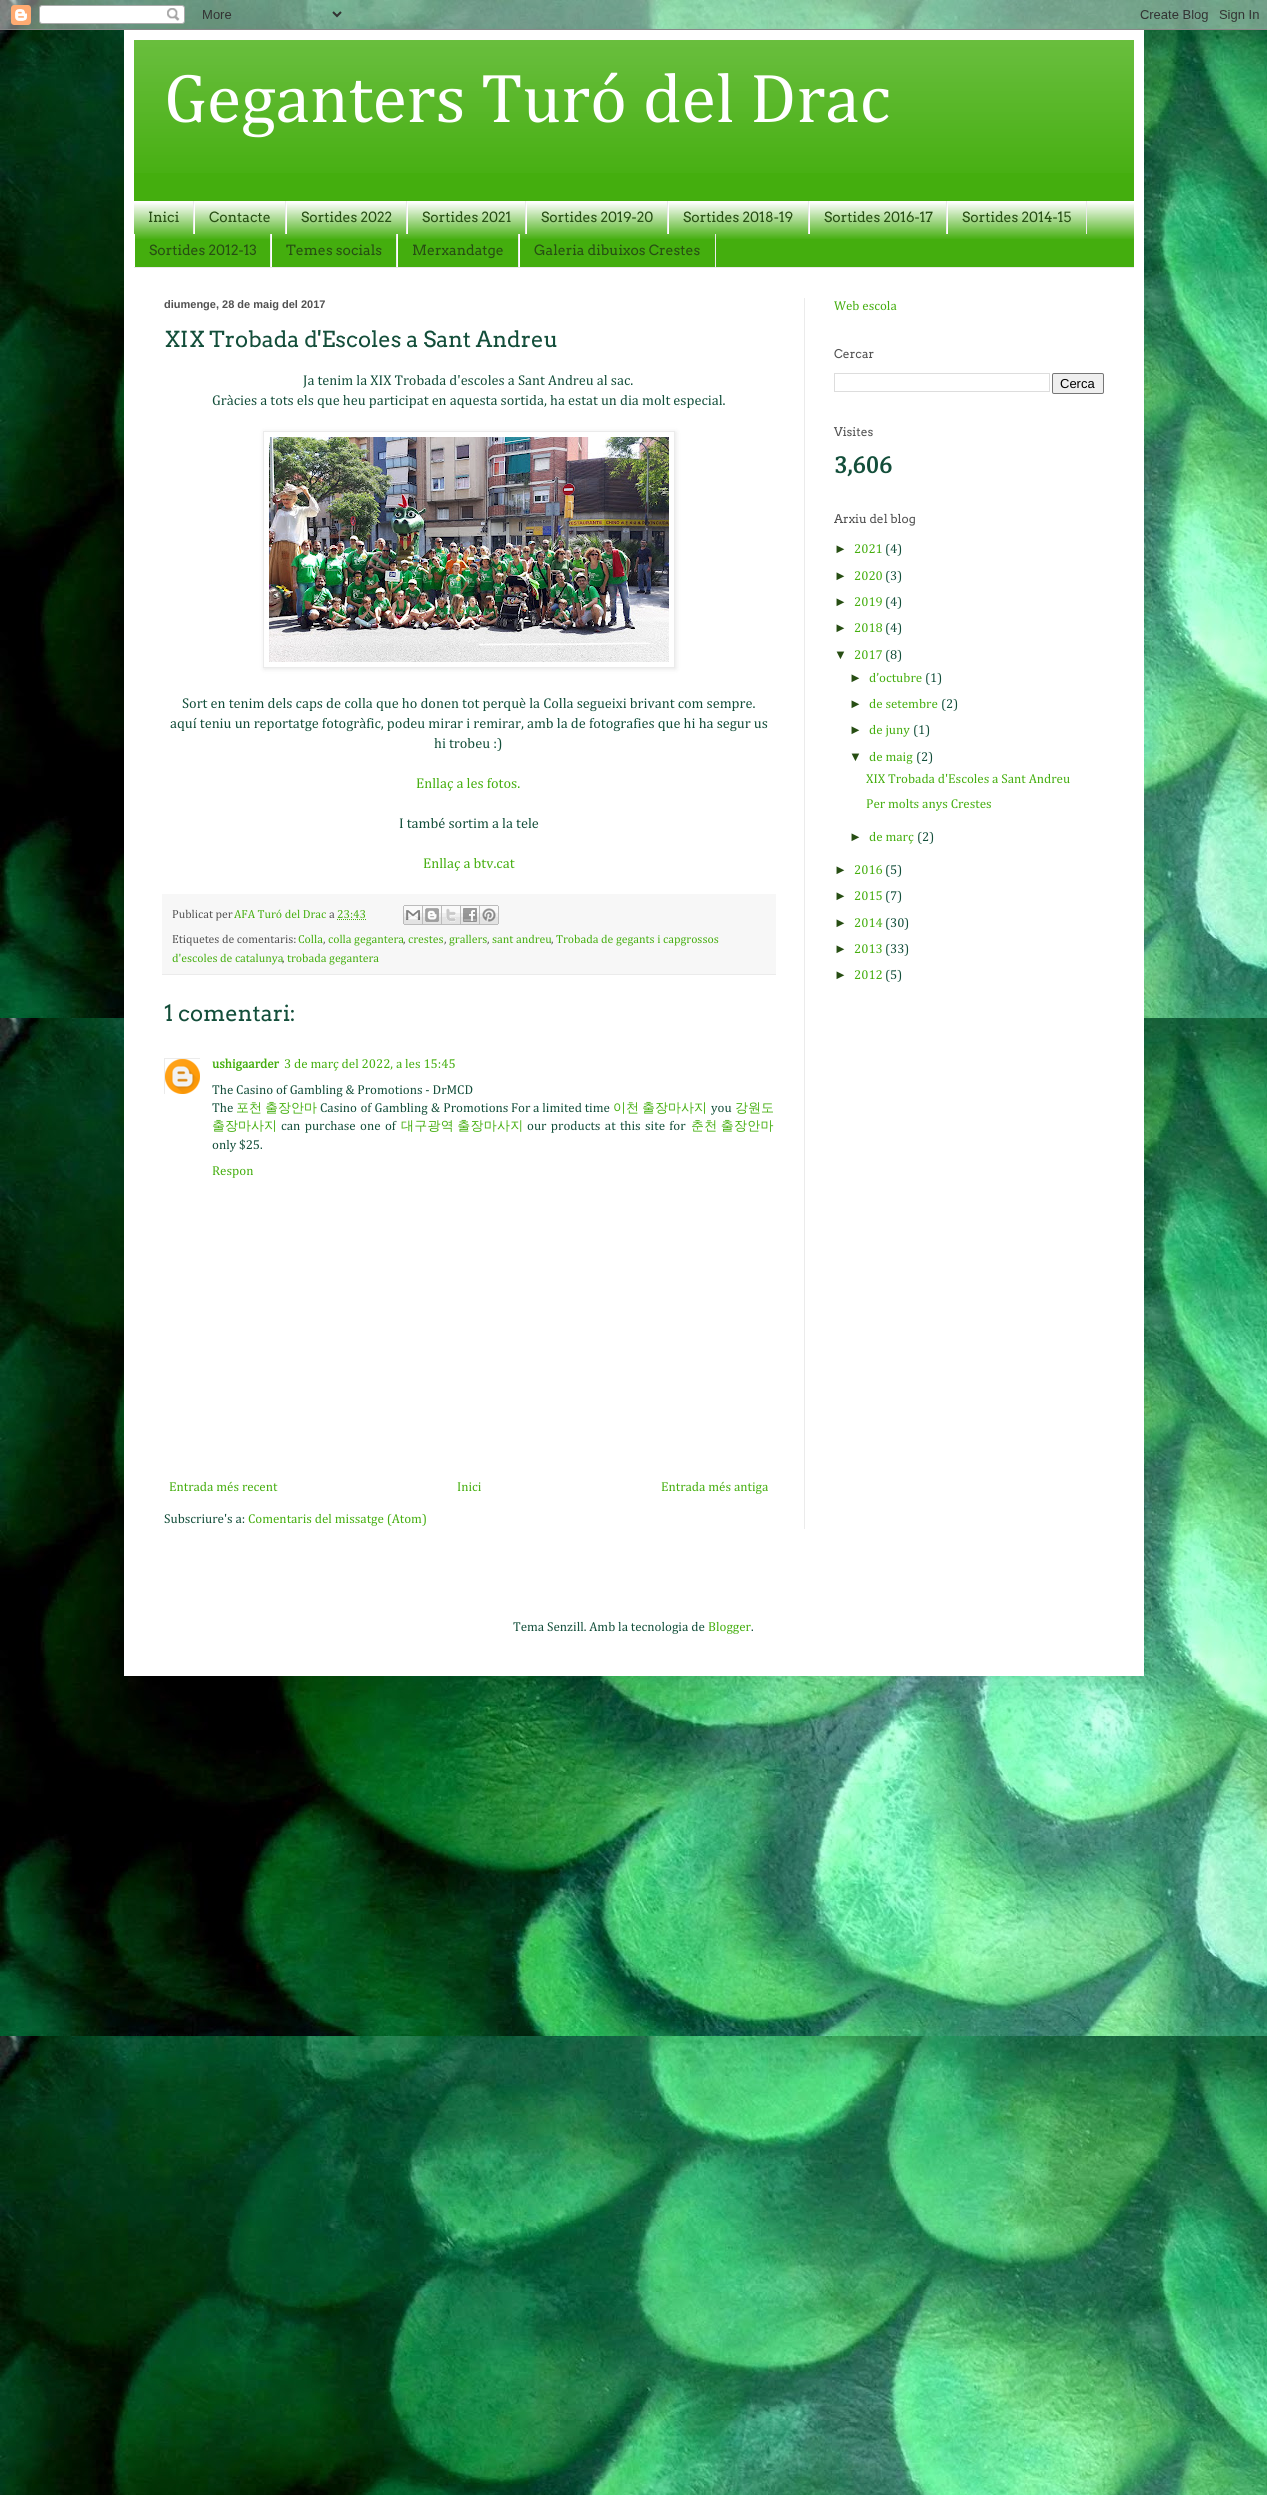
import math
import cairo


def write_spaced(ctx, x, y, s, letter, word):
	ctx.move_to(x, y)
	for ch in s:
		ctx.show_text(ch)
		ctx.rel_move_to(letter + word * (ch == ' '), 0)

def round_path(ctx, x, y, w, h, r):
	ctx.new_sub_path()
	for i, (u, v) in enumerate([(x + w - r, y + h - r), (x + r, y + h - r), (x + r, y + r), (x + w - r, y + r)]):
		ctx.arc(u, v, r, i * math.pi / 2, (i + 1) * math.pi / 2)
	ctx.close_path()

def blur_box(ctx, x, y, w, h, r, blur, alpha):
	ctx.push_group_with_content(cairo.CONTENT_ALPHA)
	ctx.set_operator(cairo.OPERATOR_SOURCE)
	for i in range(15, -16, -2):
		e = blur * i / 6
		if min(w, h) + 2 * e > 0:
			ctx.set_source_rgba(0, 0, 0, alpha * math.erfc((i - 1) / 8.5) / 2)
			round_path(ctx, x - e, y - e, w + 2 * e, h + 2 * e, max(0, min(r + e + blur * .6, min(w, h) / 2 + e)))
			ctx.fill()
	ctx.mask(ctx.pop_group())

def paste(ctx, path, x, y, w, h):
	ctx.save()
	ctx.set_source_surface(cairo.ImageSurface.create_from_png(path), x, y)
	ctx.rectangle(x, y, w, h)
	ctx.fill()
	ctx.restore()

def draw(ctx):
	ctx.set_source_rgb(1, 1, 1)
	ctx.paint()
	paste(ctx, 'media/1.png', 0, 0, 1267, 2495)
	ctx.set_source_rgb(0, 0, 0)
	blur_box(ctx, 124, 30, 1020, 1646, 0, 20, 0.15)
	paste(ctx, 'media/2.png', 0, 0, 1267, 30)
	ctx.set_source_rgb(1, 1, 1)
	ctx.rectangle(124, 30, 1020, 1646)
	ctx.fill()
	ctx.set_source_rgb(0.267, 0.682, 0.055)
	ctx.rectangle(134, 40, 1000, 161)
	ctx.fill()
	paste(ctx, 'media/3.png', 134, 40, 1000, 133)
	ctx.select_font_face('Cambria')
	ctx.set_font_size(70)
	ctx.set_source_rgb(1, 1, 1)
	ctx.move_to(164, 122)
	ctx.show_text('Geganters Turó del Drac')
	ctx.set_source_rgb(0.267, 0.682, 0.055)
	ctx.rectangle(134, 202, 1000, 65)
	ctx.fill()
	paste(ctx, 'media/4.png', 134, 201, 1000, 38)
	ctx.set_source_rgb(0.918, 0.918, 0.918)
	ctx.rectangle(134, 267, 1000, 1)
	ctx.fill()
	ctx.rectangle(193, 201, 1, 33)
	ctx.fill()
	ctx.select_font_face('Arvo')
	ctx.set_font_size(14)
	ctx.set_source_rgb(0.153, 0.306, 0.075)
	ctx.move_to(148, 222)
	ctx.show_text('Inici')
	ctx.set_source_rgb(0.918, 0.918, 0.918)
	ctx.rectangle(285, 201, 1, 33)
	ctx.fill()
	ctx.set_source_rgb(1, 1, 1)
	ctx.rectangle(194, 201, 1, 33)
	ctx.fill()
	ctx.set_source_rgb(0.153, 0.306, 0.075)
	ctx.move_to(209, 222)
	ctx.show_text('Contacte')
	ctx.set_source_rgb(0.918, 0.918, 0.918)
	ctx.rectangle(406, 201, 1, 33)
	ctx.fill()
	ctx.set_source_rgb(1, 1, 1)
	ctx.rectangle(286, 201, 1, 33)
	ctx.fill()
	ctx.set_source_rgb(0.153, 0.306, 0.075)
	ctx.move_to(301, 222)
	ctx.show_text('Sortides 2022')
	ctx.set_source_rgb(0.918, 0.918, 0.918)
	ctx.rectangle(525, 201, 1, 33)
	ctx.fill()
	ctx.set_source_rgb(1, 1, 1)
	ctx.rectangle(407, 201, 1, 33)
	ctx.fill()
	ctx.set_source_rgb(0.153, 0.306, 0.075)
	ctx.move_to(422, 222)
	ctx.show_text('Sortides 2021')
	ctx.set_source_rgb(0.918, 0.918, 0.918)
	ctx.rectangle(667, 201, 1, 33)
	ctx.fill()
	ctx.set_source_rgb(1, 1, 1)
	ctx.rectangle(526, 201, 1, 33)
	ctx.fill()
	ctx.set_source_rgb(0.153, 0.306, 0.075)
	ctx.move_to(541, 222)
	ctx.show_text('Sortides 2019-20')
	ctx.set_source_rgb(0.918, 0.918, 0.918)
	ctx.rectangle(808, 201, 1, 33)
	ctx.fill()
	ctx.set_source_rgb(1, 1, 1)
	ctx.rectangle(668, 201, 1, 33)
	ctx.fill()
	ctx.set_source_rgb(0.153, 0.306, 0.075)
	ctx.move_to(683, 222)
	ctx.show_text('Sortides 2018-19')
	ctx.set_source_rgb(0.918, 0.918, 0.918)
	ctx.rectangle(946, 201, 1, 33)
	ctx.fill()
	ctx.set_source_rgb(1, 1, 1)
	ctx.rectangle(809, 201, 1, 33)
	ctx.fill()
	ctx.set_source_rgb(0.153, 0.306, 0.075)
	ctx.move_to(824, 222)
	ctx.show_text('Sortides 2016-17')
	ctx.set_source_rgb(0.918, 0.918, 0.918)
	ctx.rectangle(1086, 201, 1, 33)
	ctx.fill()
	ctx.set_source_rgb(1, 1, 1)
	ctx.rectangle(947, 201, 1, 33)
	ctx.fill()
	ctx.set_source_rgb(0.153, 0.306, 0.075)
	ctx.move_to(962, 222)
	ctx.show_text('Sortides 2014-15')
	ctx.set_source_rgb(0.918, 0.918, 0.918)
	ctx.rectangle(270, 234, 1, 33)
	ctx.fill()
	ctx.set_source_rgb(1, 1, 1)
	ctx.rectangle(134, 234, 1, 33)
	ctx.fill()
	ctx.set_source_rgb(0.153, 0.306, 0.075)
	ctx.move_to(149, 255)
	ctx.show_text('Sortides 2012-13')
	ctx.set_source_rgb(0.918, 0.918, 0.918)
	ctx.rectangle(396, 234, 1, 33)
	ctx.fill()
	ctx.set_source_rgb(1, 1, 1)
	ctx.rectangle(271, 234, 1, 33)
	ctx.fill()
	ctx.set_source_rgb(0.153, 0.306, 0.075)
	ctx.move_to(286, 255)
	ctx.show_text('Temes socials')
	ctx.set_source_rgb(0.918, 0.918, 0.918)
	ctx.rectangle(518, 234, 1, 33)
	ctx.fill()
	ctx.set_source_rgb(1, 1, 1)
	ctx.rectangle(397, 234, 1, 33)
	ctx.fill()
	ctx.set_source_rgb(0.153, 0.306, 0.075)
	ctx.move_to(412, 255)
	ctx.show_text('Merxandatge')
	ctx.set_source_rgb(0.918, 0.918, 0.918)
	ctx.rectangle(715, 234, 1, 33)
	ctx.fill()
	ctx.set_source_rgb(1, 1, 1)
	ctx.rectangle(519, 234, 1, 33)
	ctx.fill()
	ctx.set_source_rgb(0.153, 0.306, 0.075)
	ctx.move_to(534, 255)
	ctx.show_text('Galeria dibuixos Crestes')
	ctx.set_source_rgb(0.918, 0.918, 0.918)
	ctx.rectangle(804, 298, 1, 1231)
	ctx.fill()
	ctx.select_font_face('Liberation Sans', cairo.FONT_SLANT_NORMAL, cairo.FONT_WEIGHT_BOLD)
	ctx.set_font_size(11)
	ctx.set_source_rgb(0.318, 0.318, 0.318)
	ctx.move_to(164, 308)
	ctx.show_text('diumenge, 28 de maig del 2017')
	ctx.select_font_face('Arvo')
	ctx.set_font_size(22)
	ctx.set_source_rgb(0.075, 0.306, 0.227)
	ctx.move_to(164, 347)
	ctx.show_text('XIX Trobada d\'Escoles a Sant Andreu')
	ctx.select_font_face('Cambria')
	ctx.set_font_size(14.3)
	ctx.move_to(303, 385)
	ctx.show_text('Ja tenim la XIX Trobada d\'escoles a Sant Andreu al sac.')
	ctx.move_to(212, 405)
	ctx.show_text('Gràcies a tots els que heu participat en aquesta sortida, ha estat un dia molt especial.')
	ctx.save()
	ctx.set_fill_rule(cairo.FILL_RULE_EVEN_ODD)
	ctx.new_path()
	ctx.move_to(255, 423)
	ctx.line_to(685, 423)
	ctx.line_to(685, 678)
	ctx.line_to(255, 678)
	ctx.close_path()
	ctx.move_to(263, 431)
	ctx.line_to(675, 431)
	ctx.line_to(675, 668)
	ctx.line_to(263, 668)
	ctx.close_path()
	ctx.clip()
	ctx.set_source_rgb(0, 0, 0)
	blur_box(ctx, 264, 432, 412, 237, 0, 2.5, 0.1)
	ctx.restore()
	ctx.rectangle(263.5, 431.5, 411, 236)
	ctx.set_source_rgb(0.918, 0.918, 0.918)
	ctx.set_line_width(1)
	ctx.stroke()
	paste(ctx, 'media/5.png', 269, 437, 400, 225)
	ctx.set_source_rgb(0.075, 0.306, 0.227)
	for x, y, s in [
		(182, 708, 'Sort en tenim dels caps de colla que ho donen tot perquè la Colla segueixi brivant com sempre.'),
		(170, 728, 'aquí teniu un reportatge fotogràfic, podeu mirar i remirar, amb la de fotografies que hi ha segur us'),
		(434, 748, 'hi trobeu :)'),
	]:
		ctx.move_to(x, y)
		ctx.show_text(s)
	ctx.set_source_rgb(0.267, 0.682, 0.055)
	ctx.move_to(416, 788)
	ctx.show_text('Enllaç a les fotos.')
	ctx.set_source_rgb(0.075, 0.306, 0.227)
	ctx.move_to(399, 828)
	ctx.show_text('I també sortim a la tele')
	ctx.set_source_rgb(0.267, 0.682, 0.055)
	ctx.move_to(423, 868)
	ctx.show_text('Enllaç a btv.cat')
	ctx.set_source_rgb(0.965, 0.965, 0.965)
	ctx.rectangle(162, 894, 614, 80)
	ctx.fill()
	ctx.set_source_rgb(0.918, 0.918, 0.918)
	ctx.rectangle(162, 974, 614, 1)
	ctx.fill()
	ctx.set_font_size(11.75)
	ctx.set_source_rgb(0.318, 0.318, 0.318)
	ctx.move_to(172, 918)
	ctx.show_text('Publicat per')
	ctx.set_source_rgb(0.267, 0.682, 0.055)
	ctx.move_to(234, 918)
	ctx.show_text('AFA Turó del Drac')
	ctx.set_source_rgb(0.318, 0.318, 0.318)
	ctx.move_to(329, 918)
	ctx.show_text('a')
	ctx.new_path()
	ctx.move_to(337, 919.5)
	ctx.line_to(366, 919.5)
	ctx.set_source_rgb(0.267, 0.682, 0.055)
	ctx.set_dash([1, 1])
	ctx.stroke()
	ctx.move_to(337, 918)
	ctx.show_text('23:43')
	paste(ctx, 'media/6.png', 403, 905, 20, 20)
	paste(ctx, 'media/7.png', 423, 905, 19, 20)
	paste(ctx, 'media/8.png', 442, 905, 19, 20)
	paste(ctx, 'media/9.png', 461, 905, 19, 20)
	paste(ctx, 'media/10.png', 480, 905, 19, 20)
	ctx.set_source_rgb(0.318, 0.318, 0.318)
	ctx.move_to(172, 943)
	ctx.show_text('Etiquetes de comentaris:')
	ctx.set_source_rgb(0.267, 0.682, 0.055)
	ctx.move_to(298, 943)
	ctx.show_text('Colla')
	ctx.set_source_rgb(0.318, 0.318, 0.318)
	ctx.move_to(323, 943)
	ctx.show_text(',')
	ctx.set_source_rgb(0.267, 0.682, 0.055)
	ctx.move_to(328, 943)
	ctx.show_text('colla gegantera')
	ctx.set_source_rgb(0.318, 0.318, 0.318)
	ctx.move_to(403, 943)
	ctx.show_text(',')
	ctx.set_source_rgb(0.267, 0.682, 0.055)
	ctx.move_to(408, 943)
	ctx.show_text('crestes')
	ctx.set_source_rgb(0.318, 0.318, 0.318)
	ctx.move_to(444, 943)
	ctx.show_text(',')
	ctx.set_source_rgb(0.267, 0.682, 0.055)
	ctx.move_to(449, 943)
	ctx.show_text('grallers')
	ctx.set_source_rgb(0.318, 0.318, 0.318)
	ctx.move_to(487, 943)
	ctx.show_text(',')
	ctx.set_source_rgb(0.267, 0.682, 0.055)
	ctx.move_to(492, 943)
	ctx.show_text('sant andreu')
	ctx.set_source_rgb(0.318, 0.318, 0.318)
	ctx.move_to(551, 943)
	ctx.show_text(',')
	ctx.set_source_rgb(0.267, 0.682, 0.055)
	ctx.move_to(556, 943)
	ctx.show_text('Trobada de gegants i capgrossos')
	ctx.move_to(172, 962)
	ctx.show_text('d\'escoles de catalunya')
	ctx.set_source_rgb(0.318, 0.318, 0.318)
	ctx.move_to(282, 962)
	ctx.show_text(',')
	ctx.set_source_rgb(0.267, 0.682, 0.055)
	ctx.move_to(287, 962)
	ctx.show_text('trobada gegantera')
	ctx.select_font_face('Arvo')
	ctx.set_font_size(22)
	ctx.set_source_rgb(0.075, 0.306, 0.227)
	ctx.move_to(164, 1021)
	ctx.show_text('1 comentari:')
	ctx.save()
	ctx.rectangle(164, 1058, 36, 36)
	ctx.clip()
	ctx.rectangle(164.5, 1058.5, 36, 36)
	ctx.set_source_rgb(0.918, 0.918, 0.918)
	ctx.set_dash([])
	ctx.stroke()
	ctx.restore()
	paste(ctx, 'media/11.png', 165, 1059, 35, 35)
	ctx.select_font_face('Cambria', cairo.FONT_SLANT_NORMAL, cairo.FONT_WEIGHT_BOLD)
	ctx.set_font_size(13)
	ctx.set_source_rgb(0.267, 0.682, 0.055)
	ctx.move_to(212, 1068)
	ctx.show_text('ushigaarder')
	ctx.select_font_face('Cambria')
	ctx.move_to(284, 1068)
	ctx.show_text('3 de març del 2022, a les 15:45')
	ctx.set_source_rgb(0.075, 0.306, 0.227)
	ctx.move_to(212, 1094)
	ctx.show_text('The Casino of Gambling & Promotions - DrMCD')
	ctx.move_to(212, 1112)
	ctx.show_text('The')
	ctx.select_font_face('WenQuanYi Zen Hei Medium')
	ctx.set_source_rgb(0.267, 0.682, 0.055)
	write_spaced(ctx, 236, 1112, '포천 출장안마', 0, -1)
	ctx.select_font_face('Cambria')
	ctx.set_source_rgb(0.075, 0.306, 0.227)
	write_spaced(ctx, 320, 1112, 'Casino of Gambling & Promotions', 0, 0.5)
	ctx.move_to(511, 1112)
	ctx.show_text('For a limited time')
	ctx.select_font_face('WenQuanYi Zen Hei Medium')
	ctx.set_source_rgb(0.267, 0.682, 0.055)
	write_spaced(ctx, 613, 1112, '이천 출장마사지', 0, -1)
	ctx.select_font_face('Cambria')
	ctx.set_source_rgb(0.075, 0.306, 0.227)
	ctx.move_to(711, 1112)
	ctx.show_text('you')
	ctx.select_font_face('WenQuanYi Zen Hei Medium')
	ctx.set_source_rgb(0.267, 0.682, 0.055)
	ctx.move_to(735, 1112)
	ctx.show_text('강원도')
	ctx.move_to(212, 1130)
	ctx.show_text('출장마사지')
	ctx.select_font_face('Cambria')
	ctx.set_source_rgb(0.075, 0.306, 0.227)
	write_spaced(ctx, 281, 1130, 'can purchase one of', 0, 1.5)
	ctx.select_font_face('WenQuanYi Zen Hei Medium')
	ctx.set_source_rgb(0.267, 0.682, 0.055)
	write_spaced(ctx, 401, 1130, '대구광역 출장마사지', 0.25, -1)
	ctx.select_font_face('Cambria')
	ctx.set_source_rgb(0.075, 0.306, 0.227)
	write_spaced(ctx, 527, 1130, 'our products at this site for', 0, 1.5)
	ctx.select_font_face('WenQuanYi Zen Hei Medium')
	ctx.set_source_rgb(0.267, 0.682, 0.055)
	write_spaced(ctx, 691, 1130, '춘천 출장안마', 0.25, -1)
	ctx.select_font_face('Cambria')
	ctx.set_source_rgb(0.075, 0.306, 0.227)
	ctx.move_to(212, 1149)
	ctx.show_text('only $25.')
	ctx.set_source_rgb(0.267, 0.682, 0.055)
	for x, y, s in [
		(212, 1175, 'Respon'),
		(169, 1491, 'Entrada més recent'),
		(457, 1491, 'Inici'),
		(661, 1491, 'Entrada més antiga'),
	]:
		ctx.move_to(x, y)
		ctx.show_text(s)
	ctx.set_source_rgb(0.075, 0.306, 0.227)
	ctx.move_to(164, 1523)
	ctx.show_text('Subscriure\'s a:')
	ctx.set_source_rgb(0.267, 0.682, 0.055)
	ctx.move_to(248, 1523)
	ctx.show_text('Comentaris del missatge (Atom)')
	ctx.move_to(834, 310)
	ctx.show_text('Web escola')
	ctx.select_font_face('Arvo')
	ctx.set_font_size(12)
	ctx.set_source_rgb(0.318, 0.318, 0.318)
	ctx.move_to(834, 358)
	ctx.show_text('Cercar')
	ctx.rectangle(834.5, 373.5, 215, 18)
	ctx.set_source_rgb(0.867, 0.867, 0.867)
	ctx.set_dash([])
	ctx.stroke()
	ctx.set_source_rgb(0.937, 0.937, 0.937)
	round_path(ctx, 1052.5, 373.5, 51, 20, 1.5)
	ctx.fill_preserve()
	ctx.set_source_rgb(0.463, 0.463, 0.463)
	ctx.stroke()
	ctx.select_font_face('Liberation Sans')
	ctx.set_font_size(13)
	ctx.set_source_rgb(0, 0, 0)
	ctx.move_to(1060, 388)
	ctx.show_text('Cerca')
	ctx.select_font_face('Arvo')
	ctx.set_font_size(12)
	ctx.set_source_rgb(0.318, 0.318, 0.318)
	ctx.move_to(834, 436)
	ctx.show_text('Visites')
	ctx.select_font_face('Cambria', cairo.FONT_SLANT_NORMAL, cairo.FONT_WEIGHT_BOLD)
	ctx.set_font_size(24)
	ctx.set_source_rgb(0.075, 0.306, 0.227)
	ctx.move_to(834, 473)
	ctx.show_text('3,606')
	ctx.select_font_face('Arvo')
	ctx.set_font_size(12)
	ctx.set_source_rgb(0.318, 0.318, 0.318)
	ctx.move_to(834, 523)
	ctx.show_text('Arxiu del blog')
	ctx.select_font_face('Liberation Sans')
	ctx.set_font_size(13)
	ctx.set_source_rgb(0.153, 0.306, 0.075)
	ctx.move_to(834, 553)
	ctx.show_text('►')
	ctx.select_font_face('Cambria')
	ctx.set_source_rgb(0.267, 0.682, 0.055)
	ctx.move_to(854, 553)
	ctx.show_text('2021')
	ctx.set_source_rgb(0.075, 0.306, 0.227)
	ctx.move_to(885, 553)
	ctx.show_text('(4)')
	ctx.select_font_face('Liberation Sans')
	ctx.set_source_rgb(0.153, 0.306, 0.075)
	ctx.move_to(834, 580)
	ctx.show_text('►')
	ctx.select_font_face('Cambria')
	ctx.set_source_rgb(0.267, 0.682, 0.055)
	ctx.move_to(854, 580)
	ctx.show_text('2020')
	ctx.set_source_rgb(0.075, 0.306, 0.227)
	ctx.move_to(885, 580)
	ctx.show_text('(3)')
	ctx.select_font_face('Liberation Sans')
	ctx.set_source_rgb(0.153, 0.306, 0.075)
	ctx.move_to(834, 606)
	ctx.show_text('►')
	ctx.select_font_face('Cambria')
	ctx.set_source_rgb(0.267, 0.682, 0.055)
	ctx.move_to(854, 606)
	ctx.show_text('2019')
	ctx.set_source_rgb(0.075, 0.306, 0.227)
	ctx.move_to(885, 606)
	ctx.show_text('(4)')
	ctx.select_font_face('Liberation Sans')
	ctx.set_source_rgb(0.153, 0.306, 0.075)
	ctx.move_to(834, 632)
	ctx.show_text('►')
	ctx.select_font_face('Cambria')
	ctx.set_source_rgb(0.267, 0.682, 0.055)
	ctx.move_to(854, 632)
	ctx.show_text('2018')
	ctx.set_source_rgb(0.075, 0.306, 0.227)
	ctx.move_to(885, 632)
	ctx.show_text('(4)')
	ctx.select_font_face('Liberation Sans')
	ctx.set_source_rgb(0.153, 0.306, 0.075)
	ctx.move_to(834, 659)
	ctx.show_text('▼')
	ctx.select_font_face('Cambria')
	ctx.set_source_rgb(0.267, 0.682, 0.055)
	ctx.move_to(854, 659)
	ctx.show_text('2017')
	ctx.set_source_rgb(0.075, 0.306, 0.227)
	ctx.move_to(885, 659)
	ctx.show_text('(8)')
	ctx.select_font_face('Liberation Sans')
	ctx.set_source_rgb(0.153, 0.306, 0.075)
	ctx.move_to(849, 682)
	ctx.show_text('►')
	ctx.select_font_face('Cambria')
	ctx.set_source_rgb(0.267, 0.682, 0.055)
	ctx.move_to(869, 682)
	ctx.show_text('d’octubre')
	ctx.set_source_rgb(0.075, 0.306, 0.227)
	ctx.move_to(925, 682)
	ctx.show_text('(1)')
	ctx.select_font_face('Liberation Sans')
	ctx.set_source_rgb(0.153, 0.306, 0.075)
	ctx.move_to(849, 708)
	ctx.show_text('►')
	ctx.select_font_face('Cambria')
	ctx.set_source_rgb(0.267, 0.682, 0.055)
	ctx.move_to(869, 708)
	ctx.show_text('de setembre')
	ctx.set_source_rgb(0.075, 0.306, 0.227)
	ctx.move_to(941, 708)
	ctx.show_text('(2)')
	ctx.select_font_face('Liberation Sans')
	ctx.set_source_rgb(0.153, 0.306, 0.075)
	ctx.move_to(849, 734)
	ctx.show_text('►')
	ctx.select_font_face('Cambria')
	ctx.set_source_rgb(0.267, 0.682, 0.055)
	ctx.move_to(869, 734)
	ctx.show_text('de juny')
	ctx.set_source_rgb(0.075, 0.306, 0.227)
	ctx.move_to(913, 734)
	ctx.show_text('(1)')
	ctx.select_font_face('Liberation Sans')
	ctx.set_source_rgb(0.153, 0.306, 0.075)
	ctx.move_to(849, 761)
	ctx.show_text('▼')
	ctx.select_font_face('Cambria')
	ctx.set_source_rgb(0.267, 0.682, 0.055)
	ctx.move_to(869, 761)
	ctx.show_text('de maig')
	ctx.set_source_rgb(0.075, 0.306, 0.227)
	ctx.move_to(916, 761)
	ctx.show_text('(2)')
	ctx.set_source_rgb(0.267, 0.682, 0.055)
	ctx.move_to(866, 783)
	ctx.show_text('XIX Trobada d\'Escoles a Sant Andreu')
	ctx.move_to(866, 808)
	ctx.show_text('Per molts anys Crestes')
	ctx.select_font_face('Liberation Sans')
	ctx.set_source_rgb(0.153, 0.306, 0.075)
	ctx.move_to(849, 841)
	ctx.show_text('►')
	ctx.select_font_face('Cambria')
	ctx.set_source_rgb(0.267, 0.682, 0.055)
	ctx.move_to(869, 841)
	ctx.show_text('de març')
	ctx.set_source_rgb(0.075, 0.306, 0.227)
	ctx.move_to(917, 841)
	ctx.show_text('(2)')
	ctx.select_font_face('Liberation Sans')
	ctx.set_source_rgb(0.153, 0.306, 0.075)
	ctx.move_to(834, 874)
	ctx.show_text('►')
	ctx.select_font_face('Cambria')
	ctx.set_source_rgb(0.267, 0.682, 0.055)
	ctx.move_to(854, 874)
	ctx.show_text('2016')
	ctx.set_source_rgb(0.075, 0.306, 0.227)
	ctx.move_to(885, 874)
	ctx.show_text('(5)')
	ctx.select_font_face('Liberation Sans')
	ctx.set_source_rgb(0.153, 0.306, 0.075)
	ctx.move_to(834, 900)
	ctx.show_text('►')
	ctx.select_font_face('Cambria')
	ctx.set_source_rgb(0.267, 0.682, 0.055)
	ctx.move_to(854, 900)
	ctx.show_text('2015')
	ctx.set_source_rgb(0.075, 0.306, 0.227)
	ctx.move_to(885, 900)
	ctx.show_text('(7)')
	ctx.select_font_face('Liberation Sans')
	ctx.set_source_rgb(0.153, 0.306, 0.075)
	ctx.move_to(834, 927)
	ctx.show_text('►')
	ctx.select_font_face('Cambria')
	ctx.set_source_rgb(0.267, 0.682, 0.055)
	ctx.move_to(854, 927)
	ctx.show_text('2014')
	ctx.set_source_rgb(0.075, 0.306, 0.227)
	ctx.move_to(885, 927)
	ctx.show_text('(30)')
	ctx.select_font_face('Liberation Sans')
	ctx.set_source_rgb(0.153, 0.306, 0.075)
	ctx.move_to(834, 953)
	ctx.show_text('►')
	ctx.select_font_face('Cambria')
	ctx.set_source_rgb(0.267, 0.682, 0.055)
	ctx.move_to(854, 953)
	ctx.show_text('2013')
	ctx.set_source_rgb(0.075, 0.306, 0.227)
	ctx.move_to(885, 953)
	ctx.show_text('(33)')
	ctx.select_font_face('Liberation Sans')
	ctx.set_source_rgb(0.153, 0.306, 0.075)
	ctx.move_to(834, 979)
	ctx.show_text('►')
	ctx.select_font_face('Cambria')
	ctx.set_source_rgb(0.267, 0.682, 0.055)
	ctx.move_to(854, 979)
	ctx.show_text('2012')
	ctx.set_source_rgb(0.075, 0.306, 0.227)
	ctx.move_to(885, 979)
	ctx.show_text('(5)')
	ctx.move_to(513, 1631)
	ctx.show_text('Tema Senzill. Amb la tecnologia de')
	ctx.set_source_rgb(0.267, 0.682, 0.055)
	ctx.move_to(708, 1631)
	ctx.show_text('Blogger')
	ctx.set_source_rgb(0.075, 0.306, 0.227)
	ctx.move_to(751, 1631)
	ctx.show_text('.')


surface = cairo.ImageSurface(cairo.FORMAT_RGB24, 1267, 2495)
ctx = cairo.Context(surface)
options = cairo.FontOptions()
options.set_hint_metrics(cairo.HINT_METRICS_OFF)
options.set_hint_style(cairo.HINT_STYLE_NONE)
ctx.set_font_options(options)
ctx.set_miter_limit(4)
draw(ctx)
surface.write_to_png('image.png')
